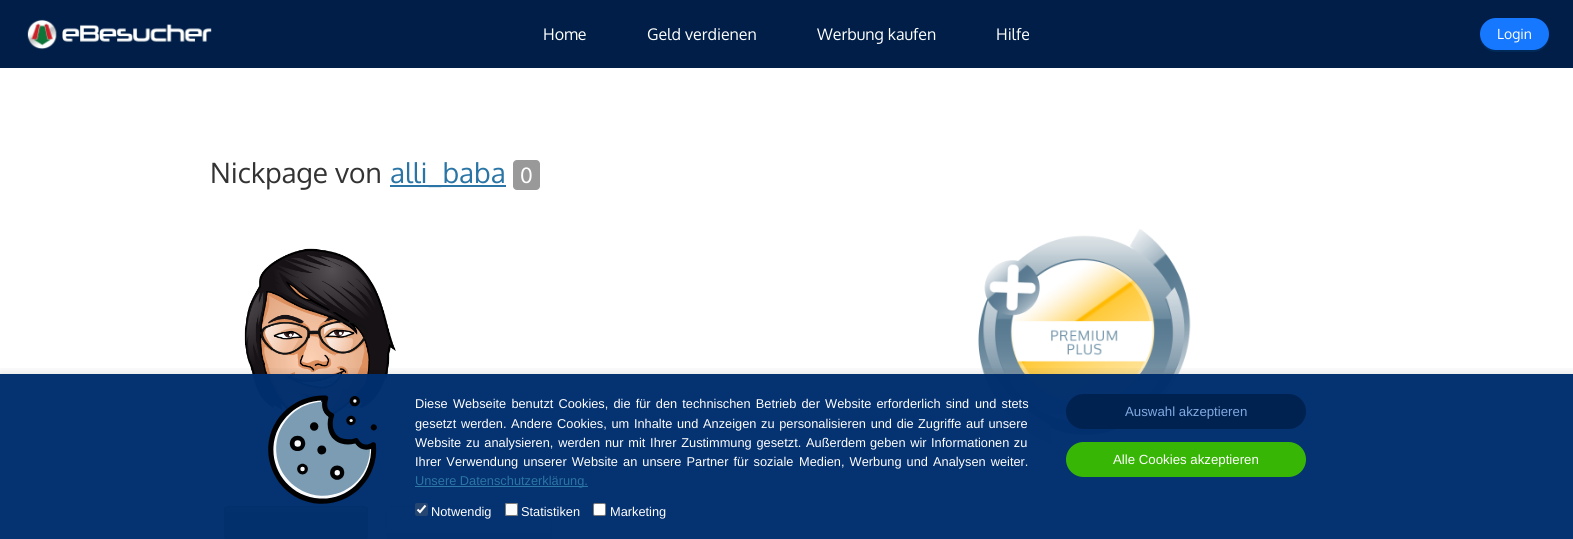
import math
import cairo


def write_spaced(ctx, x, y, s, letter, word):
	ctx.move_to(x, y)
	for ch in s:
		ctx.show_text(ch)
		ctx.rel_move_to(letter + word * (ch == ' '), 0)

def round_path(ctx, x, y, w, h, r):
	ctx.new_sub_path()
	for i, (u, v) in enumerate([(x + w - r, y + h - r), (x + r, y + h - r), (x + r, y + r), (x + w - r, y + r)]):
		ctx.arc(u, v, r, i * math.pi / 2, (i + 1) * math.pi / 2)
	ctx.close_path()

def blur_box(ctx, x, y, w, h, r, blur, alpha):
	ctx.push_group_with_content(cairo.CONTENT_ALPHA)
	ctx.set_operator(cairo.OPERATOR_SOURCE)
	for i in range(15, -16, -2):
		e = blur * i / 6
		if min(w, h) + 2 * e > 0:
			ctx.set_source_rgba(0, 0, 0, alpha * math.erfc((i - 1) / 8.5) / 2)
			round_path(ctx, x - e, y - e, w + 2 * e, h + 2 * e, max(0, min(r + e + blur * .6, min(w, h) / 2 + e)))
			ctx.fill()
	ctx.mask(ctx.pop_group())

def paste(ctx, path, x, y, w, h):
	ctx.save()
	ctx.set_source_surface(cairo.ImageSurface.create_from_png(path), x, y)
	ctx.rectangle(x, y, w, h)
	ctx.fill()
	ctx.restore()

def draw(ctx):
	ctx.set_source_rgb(1, 1, 1)
	ctx.paint()
	ctx.set_source_rgb(0, 0.118, 0.278)
	ctx.rectangle(0, 0, 1573, 68)
	ctx.fill()
	paste(ctx, 'media/1.png', 27, 19, 185, 31)
	ctx.select_font_face('Oxygen')
	ctx.set_font_size(16)
	ctx.set_source_rgb(1, 1, 1)
	for x, y, s in [
		(543, 40, 'Home'),
		(647, 40, 'Geld verdienen'),
		(817, 40, 'Werbung kaufen'),
		(996, 40, 'Hilfe'),
	]:
		ctx.move_to(x, y)
		ctx.show_text(s)
	ctx.set_source_rgb(0.004, 0.165, 0.349)
	ctx.new_path()
	ctx.move_to(1480, 35)
	ctx.line_to(1480, 36)
	ctx.curve_to(1480, 45, 1487, 52, 1496, 52)
	ctx.line_to(1533, 52)
	ctx.curve_to(1542, 52, 1549, 45, 1549, 36)
	ctx.line_to(1549, 35)
	ctx.curve_to(1548, 53, 1527, 50, 1514, 50)
	ctx.curve_to(1502, 50, 1481, 53, 1480, 35)
	ctx.close_path()
	ctx.fill()
	ctx.set_source_rgb(0.086, 0.467, 1)
	round_path(ctx, 1480, 18, 69, 32, 16)
	ctx.fill()
	ctx.set_font_size(14)
	ctx.set_source_rgb(1, 1, 1)
	ctx.move_to(1497, 39)
	ctx.show_text('Login')
	ctx.set_font_size(28)
	ctx.set_source_rgb(0.2, 0.2, 0.2)
	ctx.move_to(210, 183)
	ctx.show_text('Nickpage von')
	ctx.set_source_rgb(0.165, 0.459, 0.647)
	ctx.rectangle(390, 185, 116, 2)
	ctx.fill()
	ctx.move_to(390, 183)
	ctx.show_text('alli_baba')
	ctx.set_source_rgb(0.6, 0.6, 0.6)
	round_path(ctx, 513, 160, 27, 30, 4)
	ctx.fill()
	ctx.set_font_size(21)
	ctx.set_source_rgb(1, 1, 1)
	ctx.move_to(520, 183)
	ctx.show_text('0')
	paste(ctx, 'media/2.png', 244, 248, 152, 174)
	paste(ctx, 'media/3.png', 978, 229, 213, 216)
	ctx.set_source_rgb(0, 0, 0)
	blur_box(ctx, 224, 507, 144, 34, 4, 0.5, 0.07)
	ctx.save()
	round_path(ctx, 224, 506, 144, 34, 4)
	ctx.clip()
	gradient = cairo.LinearGradient(296, 507, 296, 539)
	gradient.add_color_stop_rgba(0, 0.361, 0.722, 0.361, 1)
	gradient.add_color_stop_rgba(1, 0.255, 0.588, 0.255, 1)
	ctx.set_source(gradient)
	ctx.rectangle(224, 507, 144, 32)
	ctx.fill()
	ctx.restore()
	ctx.set_source_rgb(0.455, 0.761, 0.455)
	ctx.new_path()
	ctx.move_to(228, 508)
	ctx.line_to(364, 508)
	ctx.curve_to(366, 508, 367, 509, 367, 511)
	ctx.line_to(367, 510)
	ctx.curve_to(367, 508, 366, 507, 364, 507)
	ctx.line_to(228, 507)
	ctx.curve_to(226, 507, 225, 508, 225, 510)
	ctx.line_to(225, 511)
	ctx.curve_to(225, 509, 226, 508, 228, 508)
	ctx.close_path()
	ctx.fill()
	round_path(ctx, 224.5, 506.5, 143, 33, 3.5)
	ctx.set_source_rgb(0.243, 0.561, 0.243)
	ctx.set_line_width(1)
	ctx.stroke()
	ctx.set_source_rgb(0, 0, 0)
	blur_box(ctx, 386, 507, 166, 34, 4, 0.5, 0.07)
	ctx.save()
	round_path(ctx, 386, 506, 166, 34, 4)
	ctx.clip()
	gradient = cairo.LinearGradient(469, 507, 469, 539)
	gradient.add_color_stop_rgba(0, 1, 1, 1, 1)
	gradient.add_color_stop_rgba(1, 0.878, 0.878, 0.878, 1)
	ctx.set_source(gradient)
	ctx.rectangle(386, 507, 166, 32)
	ctx.fill()
	ctx.restore()
	round_path(ctx, 386.5, 506.5, 165, 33, 3.5)
	ctx.set_source_rgb(0.8, 0.8, 0.8)
	ctx.stroke()
	ctx.save()
	ctx.rectangle(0, 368, 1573, 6)
	ctx.clip()
	ctx.set_source_rgb(0, 0, 0)
	blur_box(ctx, 0, 372, 1573, 165, 0, 5, 0.1)
	ctx.restore()
	ctx.set_source_rgba(0, 0.18, 0.427, 0.98)
	ctx.rectangle(0, 374, 1573, 165)
	ctx.fill()
	paste(ctx, 'media/4.png', 268, 395, 109, 109)
	ctx.select_font_face('Liberation Sans')
	ctx.set_font_size(12.8)
	ctx.set_source_rgb(1, 1, 1)
	write_spaced(ctx, 415, 408, 'Diese Webseite benutzt Cookies, die für den technischen Betrieb der Website erforderlich sind', 0, 1.6)
	write_spaced(ctx, 975, 408, 'und stets', 0, 1.6)
	write_spaced(ctx, 415, 428, 'gesetzt werden. Andere Cookies, um Inhalte und Anzeigen zu personalisieren und die', 0, 1.1)
	write_spaced(ctx, 918, 428, 'Zugriffe auf unsere', 0, 1.1)
	write_spaced(ctx, 415, 447, 'Website zu analysieren, werden nur mit Ihrer Zustimmung gesetzt. Außerdem', 0, 1.25)
	write_spaced(ctx, 870, 447, 'geben wir Informationen zu', 0, 1)
	write_spaced(ctx, 415, 466, 'Ihrer Verwendung unserer Website an unsere Partner für soziale', 0, 1.5)
	write_spaced(ctx, 799, 466, 'Medien, Werbung und Analysen weiter.', 0, 1.5)
	ctx.set_source_rgb(0.18, 0.471, 0.655)
	ctx.rectangle(415, 486, 173, 1)
	ctx.fill()
	ctx.set_source_rgb(0.165, 0.459, 0.647)
	ctx.move_to(415, 485)
	ctx.show_text('Unsere Datenschutzerklärung.')
	ctx.set_source_rgb(0.149, 0.275, 0.447)
	round_path(ctx, 415, 503, 13, 13, 2)
	ctx.fill()
	ctx.new_path()
	ctx.move_to(417.5, 509.5)
	ctx.line_to(420, 512)
	ctx.line_to(425.5, 505.5)
	ctx.set_source_rgb(0.984, 0.984, 0.988)
	ctx.set_line_width(2.1)
	ctx.stroke()
	ctx.set_source_rgb(1, 1, 1)
	ctx.move_to(431, 516)
	ctx.show_text('Notwendig')
	ctx.set_source_rgb(0.98, 0.984, 0.988)
	round_path(ctx, 505, 503, 13, 13, 2)
	ctx.fill()
	round_path(ctx, 505.5, 503.5, 12, 12, 1.5)
	ctx.set_source_rgba(0.463, 0.463, 0.463, 0.98)
	ctx.set_line_width(1)
	ctx.stroke()
	ctx.set_source_rgb(1, 1, 1)
	ctx.move_to(521, 516)
	ctx.show_text('Statistiken')
	round_path(ctx, 593.5, 503.5, 12, 12, 1.5)
	ctx.fill_preserve()
	ctx.set_source_rgb(0.475, 0.475, 0.475)
	ctx.stroke()
	ctx.set_source_rgb(1, 1, 1)
	ctx.move_to(610, 516)
	ctx.show_text('Marketing')
	ctx.set_source_rgba(0, 0.133, 0.318, 0.98)
	round_path(ctx, 1066, 394, 240, 35, 17.5)
	ctx.fill()
	ctx.set_font_size(13.25)
	ctx.set_source_rgb(0.506, 0.663, 0.878)
	ctx.move_to(1125, 416)
	ctx.show_text('Auswahl akzeptieren')
	ctx.set_source_rgb(0.22, 0.714, 0.027)
	round_path(ctx, 1066, 442, 240, 35, 17.5)
	ctx.fill()
	ctx.set_source_rgb(1, 1, 1)
	ctx.move_to(1113, 464)
	ctx.show_text('Alle Cookies akzeptieren')


surface = cairo.ImageSurface(cairo.FORMAT_RGB24, 1573, 539)
ctx = cairo.Context(surface)
options = cairo.FontOptions()
options.set_hint_metrics(cairo.HINT_METRICS_OFF)
options.set_hint_style(cairo.HINT_STYLE_NONE)
ctx.set_font_options(options)
ctx.set_miter_limit(4)
draw(ctx)
surface.write_to_png('image.png')
